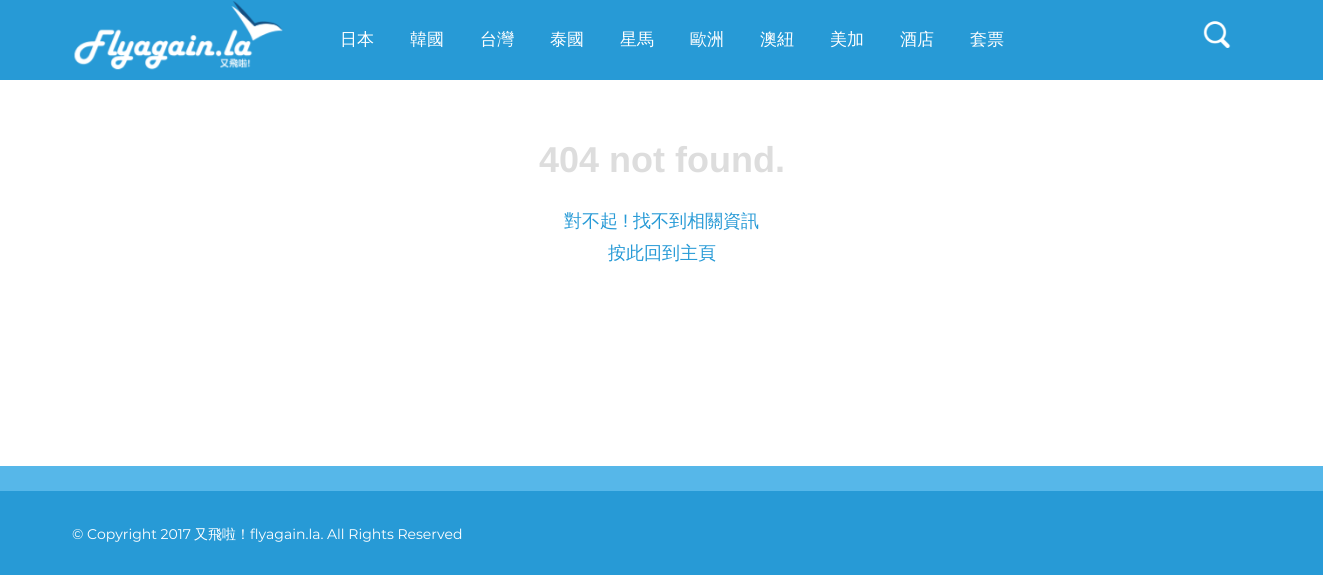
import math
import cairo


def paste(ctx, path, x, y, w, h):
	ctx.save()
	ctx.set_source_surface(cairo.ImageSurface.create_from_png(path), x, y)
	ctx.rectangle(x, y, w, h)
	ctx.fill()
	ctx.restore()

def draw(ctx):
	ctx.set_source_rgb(1, 1, 1)
	ctx.paint()
	ctx.set_source_rgb(0.153, 0.604, 0.839)
	ctx.rectangle(0, 0, 1323, 80)
	ctx.fill()
	paste(ctx, 'media/1.png', 74, 1, 209, 69)
	ctx.select_font_face('WenQuanYi Zen Hei Medium')
	ctx.set_font_size(17)
	ctx.set_source_rgb(1, 1, 1)
	for x, y, s in [
		(340, 45, '日本'),
		(410, 45, '韓國'),
		(480, 45, '台灣'),
		(550, 45, '泰國'),
		(620, 45, '星馬'),
		(690, 45, '歐洲'),
		(760, 45, '澳紐'),
		(830, 45, '美加'),
		(900, 45, '酒店'),
		(970, 45, '套票'),
	]:
		ctx.move_to(x, y)
		ctx.show_text(s)
	paste(ctx, 'media/2.png', 1203, 21, 28, 27)
	ctx.select_font_face('Liberation Sans', cairo.FONT_SLANT_NORMAL, cairo.FONT_WEIGHT_BOLD)
	ctx.set_font_size(36)
	ctx.set_source_rgb(0.867, 0.867, 0.867)
	ctx.move_to(539, 172)
	ctx.show_text('404 not found.')
	ctx.select_font_face('WenQuanYi Zen Hei Medium')
	ctx.set_font_size(18)
	ctx.set_source_rgb(0.153, 0.604, 0.839)
	ctx.move_to(564, 227)
	ctx.show_text('對不起')
	ctx.select_font_face('Liberation Sans')
	ctx.move_to(623, 227)
	ctx.show_text('!')
	ctx.select_font_face('WenQuanYi Zen Hei Medium')
	ctx.move_to(633, 227)
	ctx.show_text('找不到相關資訊')
	ctx.move_to(608, 259)
	ctx.show_text('按此回到主頁')
	ctx.set_source_rgb(0.337, 0.718, 0.914)
	ctx.rectangle(0, 466, 1323, 25)
	ctx.fill()
	ctx.set_source_rgb(0.153, 0.604, 0.839)
	ctx.rectangle(0, 491, 1323, 84)
	ctx.fill()
	ctx.select_font_face('Montserrat')
	ctx.set_font_size(14)
	ctx.set_source_rgb(1, 1, 1)
	ctx.move_to(72, 539)
	ctx.show_text('© Copyright 2017')
	ctx.select_font_face('WenQuanYi Zen Hei Medium')
	ctx.move_to(194, 539)
	ctx.show_text('又飛啦！')
	ctx.select_font_face('Montserrat')
	ctx.move_to(250, 539)
	ctx.show_text('flyagain.la. All Rights Reserved')


surface = cairo.ImageSurface(cairo.FORMAT_RGB24, 1323, 575)
ctx = cairo.Context(surface)
options = cairo.FontOptions()
options.set_hint_metrics(cairo.HINT_METRICS_OFF)
options.set_hint_style(cairo.HINT_STYLE_NONE)
ctx.set_font_options(options)
ctx.set_miter_limit(4)
draw(ctx)
surface.write_to_png('image.png')
